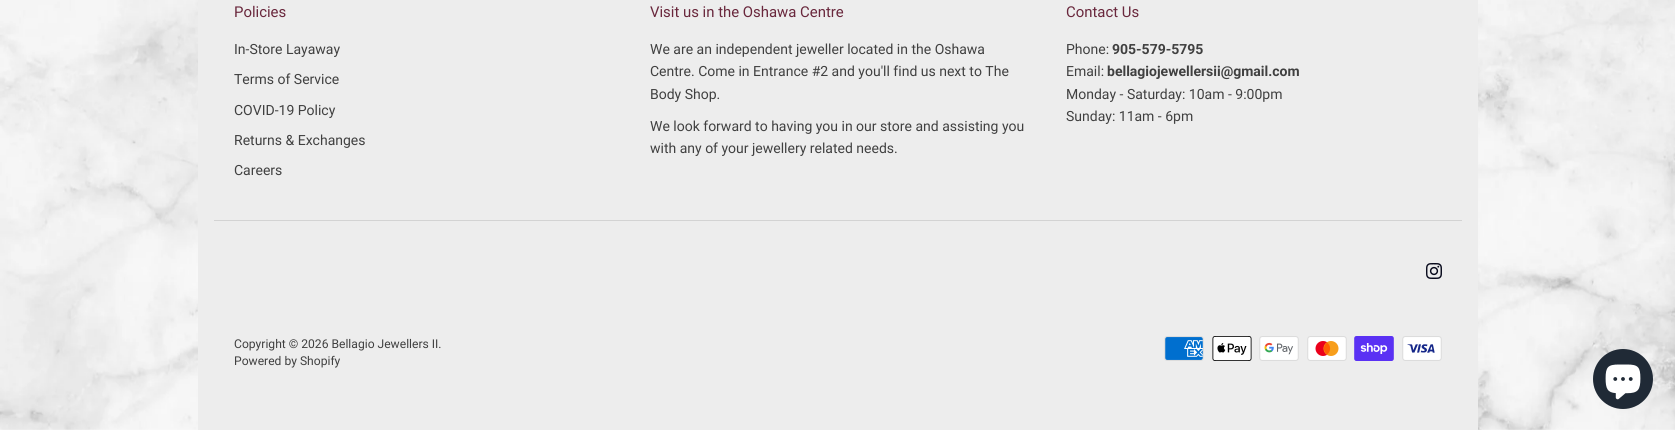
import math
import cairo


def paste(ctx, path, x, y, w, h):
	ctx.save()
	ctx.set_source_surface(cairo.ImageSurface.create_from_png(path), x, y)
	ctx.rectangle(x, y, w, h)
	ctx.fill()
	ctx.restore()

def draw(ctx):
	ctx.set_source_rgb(1, 1, 1)
	ctx.paint()
	paste(ctx, 'media/1.png', 0, 0, 1675, 430)
	ctx.set_source_rgb(0.929, 0.929, 0.929)
	ctx.rectangle(198, 0, 1280, 430)
	ctx.fill()
	ctx.set_source_rgb(0.827, 0.827, 0.827)
	ctx.rectangle(214, 220, 1248, 1)
	ctx.fill()
	ctx.select_font_face('Roboto')
	ctx.set_font_size(14.9)
	ctx.set_source_rgb(0.412, 0.153, 0.235)
	ctx.move_to(234, 17)
	ctx.show_text('Policies')
	ctx.set_font_size(14)
	ctx.set_source_rgb(0.251, 0.251, 0.251)
	for x, y, s in [
		(234, 54, 'In-Store Layaway'),
		(234, 84, 'Terms of Service'),
		(234, 115, 'COVID-19 Policy'),
		(234, 145, 'Returns & Exchanges'),
		(234, 175, 'Careers'),
	]:
		ctx.move_to(x, y)
		ctx.show_text(s)
	ctx.set_font_size(14.9)
	ctx.set_source_rgb(0.412, 0.153, 0.235)
	ctx.move_to(650, 17)
	ctx.show_text('Visit us in the Oshawa Centre')
	ctx.set_font_size(14)
	ctx.set_source_rgb(0.251, 0.251, 0.251)
	for x, y, s in [
		(650, 54, 'We are an independent jeweller located in the Oshawa'),
		(650, 76, 'Centre. Come in Entrance #2 and you\'ll find us next to The'),
		(650, 99, 'Body Shop.'),
		(650, 131, 'We look forward to having you in our store and assisting you'),
		(650, 153, 'with any of your jewellery related needs.'),
	]:
		ctx.move_to(x, y)
		ctx.show_text(s)
	ctx.set_font_size(14.9)
	ctx.set_source_rgb(0.412, 0.153, 0.235)
	ctx.move_to(1066, 17)
	ctx.show_text('Contact Us')
	ctx.set_font_size(14)
	ctx.set_source_rgb(0.251, 0.251, 0.251)
	ctx.move_to(1066, 54)
	ctx.show_text('Phone:')
	ctx.select_font_face('Roboto', cairo.FONT_SLANT_NORMAL, cairo.FONT_WEIGHT_BOLD)
	ctx.move_to(1112, 54)
	ctx.show_text('905-579-5795')
	ctx.select_font_face('Roboto')
	ctx.move_to(1066, 76)
	ctx.show_text('Email:')
	ctx.select_font_face('Roboto', cairo.FONT_SLANT_NORMAL, cairo.FONT_WEIGHT_BOLD)
	ctx.move_to(1107, 76)
	ctx.show_text('bellagiojewellersii@gmail.com')
	ctx.select_font_face('Roboto')
	ctx.move_to(1066, 99)
	ctx.show_text('Monday - Saturday: 10am - 9:00pm')
	ctx.move_to(1066, 121)
	ctx.show_text('Sunday: 11am - 6pm')
	paste(ctx, 'media/2.png', 1426, 263, 16, 16)
	ctx.set_font_size(12.1)
	ctx.move_to(234, 348)
	ctx.show_text('Copyright © 2026 Bellagio Jewellers II.')
	ctx.move_to(234, 365)
	ctx.show_text('Powered by Shopify')
	paste(ctx, 'media/3.png', 1164, 336, 40, 25)
	paste(ctx, 'media/4.png', 1212, 336, 40, 25)
	paste(ctx, 'media/5.png', 1259, 336, 40, 25)
	paste(ctx, 'media/6.png', 1307, 336, 40, 25)
	paste(ctx, 'media/7.png', 1354, 336, 40, 25)
	paste(ctx, 'media/8.png', 1402, 336, 40, 25)
	ctx.set_source_rgb(0.125, 0.165, 0.212)
	ctx.arc(1623, 379, 30, 0, 2 * math.pi)
	ctx.fill()
	paste(ctx, 'media/9.png', 1605, 364, 36, 36)


surface = cairo.ImageSurface(cairo.FORMAT_RGB24, 1675, 430)
ctx = cairo.Context(surface)
options = cairo.FontOptions()
options.set_hint_metrics(cairo.HINT_METRICS_OFF)
options.set_hint_style(cairo.HINT_STYLE_NONE)
ctx.set_font_options(options)
ctx.set_miter_limit(4)
draw(ctx)
surface.write_to_png('image.png')
